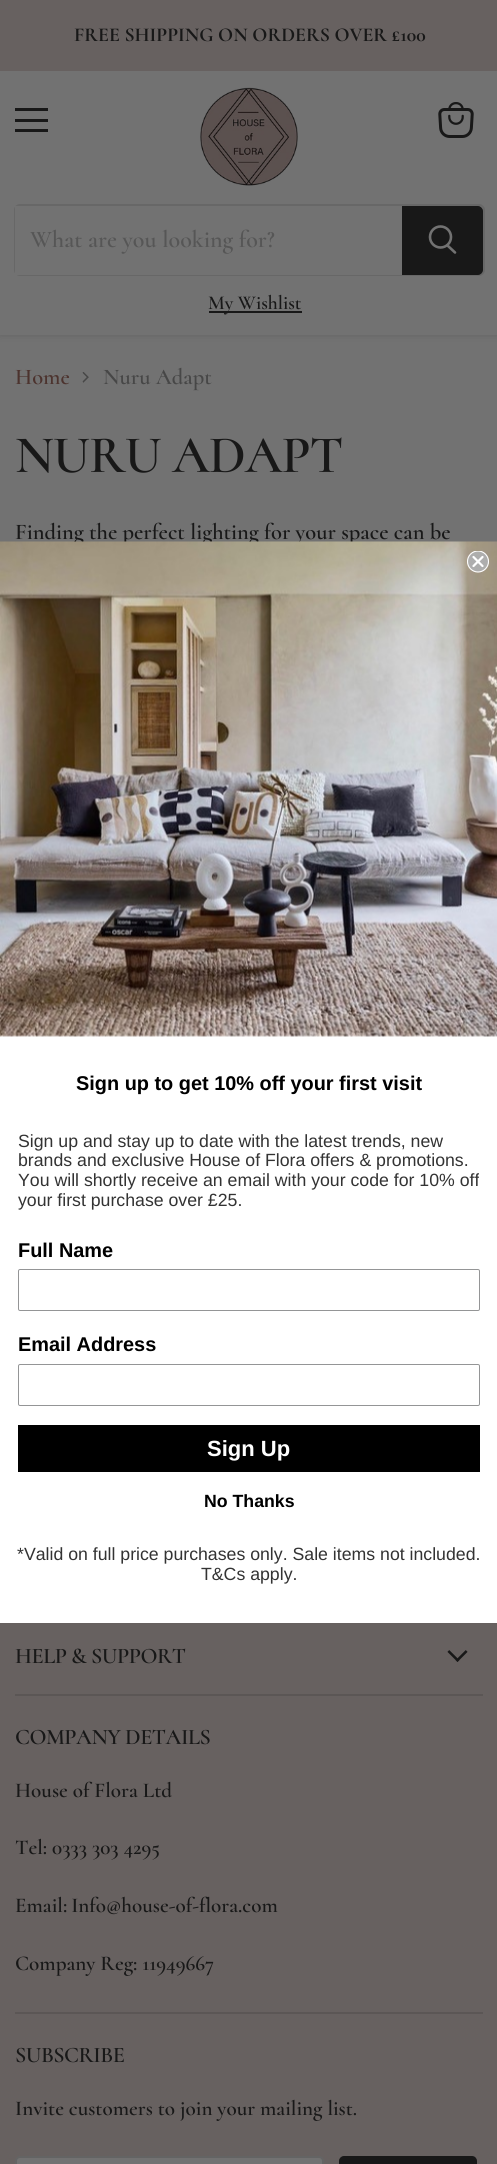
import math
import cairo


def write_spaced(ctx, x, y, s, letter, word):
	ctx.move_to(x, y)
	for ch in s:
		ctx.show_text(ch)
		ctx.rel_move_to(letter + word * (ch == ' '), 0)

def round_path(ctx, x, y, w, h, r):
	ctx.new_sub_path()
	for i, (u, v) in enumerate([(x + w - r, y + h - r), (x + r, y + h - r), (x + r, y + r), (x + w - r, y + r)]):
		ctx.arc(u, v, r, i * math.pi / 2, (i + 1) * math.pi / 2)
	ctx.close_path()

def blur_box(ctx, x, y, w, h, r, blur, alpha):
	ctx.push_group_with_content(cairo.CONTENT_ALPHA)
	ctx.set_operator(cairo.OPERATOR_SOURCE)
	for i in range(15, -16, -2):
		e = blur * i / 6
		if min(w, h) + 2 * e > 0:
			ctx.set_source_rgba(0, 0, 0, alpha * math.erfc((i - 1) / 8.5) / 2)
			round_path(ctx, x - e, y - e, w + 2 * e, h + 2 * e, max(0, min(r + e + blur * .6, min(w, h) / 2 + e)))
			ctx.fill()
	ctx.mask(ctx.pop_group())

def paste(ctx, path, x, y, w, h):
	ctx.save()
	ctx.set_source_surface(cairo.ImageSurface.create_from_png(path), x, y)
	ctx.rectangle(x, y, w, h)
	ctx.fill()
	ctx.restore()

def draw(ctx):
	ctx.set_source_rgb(0.447, 0.447, 0.447)
	ctx.paint()
	ctx.set_source_rgb(0.247, 0.247, 0.247)
	blur_box(ctx, 0, 72, 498, 264, 0, 3, 0.25)
	ctx.set_source_rgb(0.404, 0.38, 0.376)
	ctx.rectangle(0, 0, 497, 71)
	ctx.fill()
	ctx.select_font_face('Cormorant', cairo.FONT_SLANT_NORMAL, cairo.FONT_WEIGHT_BOLD)
	ctx.set_font_size(19.7)
	ctx.set_source_rgb(0.094, 0.094, 0.094)
	ctx.move_to(74, 41)
	ctx.show_text('FREE SHIPPING ON ORDERS OVER £100')
	ctx.set_source_rgb(0.447, 0.447, 0.447)
	ctx.rectangle(0, 71, 497, 264)
	ctx.fill()
	ctx.set_source_rgb(0.094, 0.094, 0.094)
	ctx.rectangle(15, 108, 33, 3)
	ctx.rectangle(15, 119, 33, 3)
	ctx.rectangle(15, 129, 33, 3)
	ctx.fill()
	paste(ctx, 'media/1.png', 438, 102, 36, 36)
	paste(ctx, 'media/2.png', 200, 87, 98, 99)
	round_path(ctx, 15, 205, 469, 70, 5)
	ctx.set_source_rgba(0.247, 0.247, 0.247, 0.2)
	ctx.stroke()
	ctx.set_source_rgb(0.447, 0.447, 0.447)
	ctx.rectangle(15, 206, 387, 69)
	ctx.fill()
	ctx.select_font_face('Cormorant SemiBold')
	ctx.set_font_size(24)
	ctx.set_source_rgb(0.337, 0.337, 0.337)
	ctx.move_to(30, 247)
	ctx.show_text('What are you looking for?')
	ctx.set_source_rgb(0.094, 0.094, 0.094)
	ctx.new_path()
	ctx.move_to(403, 207)
	ctx.line_to(478, 207)
	ctx.curve_to(480, 207, 482, 209, 482, 211)
	ctx.line_to(482, 270)
	ctx.curve_to(482, 272, 480, 274, 478, 274)
	ctx.line_to(403, 274)
	ctx.close_path()
	ctx.fill_preserve()
	ctx.stroke()
	ctx.new_path()
	ctx.move_to(455, 252.5)
	ctx.line_to(447.5, 245.5)
	ctx.set_source_rgb(0.447, 0.447, 0.447)
	ctx.set_line_width(2.6)
	ctx.set_line_cap(cairo.LINE_CAP_ROUND)
	ctx.stroke()
	ctx.arc(440.5, 237, 10.5, 0, 2 * math.pi)
	ctx.set_line_cap(cairo.LINE_CAP_BUTT)
	ctx.stroke()
	ctx.set_source_rgb(0.094, 0.094, 0.094)
	ctx.rectangle(209, 311, 93, 2)
	ctx.fill()
	ctx.set_font_size(19.7)
	ctx.move_to(208, 309)
	ctx.show_text('My Wishlist')
	ctx.set_font_size(22.5)
	ctx.set_source_rgb(0.298, 0.2, 0.18)
	ctx.move_to(15, 384)
	ctx.show_text('Home')
	paste(ctx, 'media/3.png', 82, 372, 7, 11)
	ctx.set_source_rgb(0.278, 0.278, 0.278)
	ctx.move_to(103, 384)
	ctx.show_text('Nuru Adapt')
	ctx.set_font_size(53)
	ctx.set_source_rgb(0.094, 0.094, 0.094)
	write_spaced(ctx, 15, 472, 'NURU ADAPT', -1, 0)
	ctx.set_font_size(22.5)
	ctx.move_to(15, 539)
	ctx.show_text('Finding the perfect lighting for your space can be')
	ctx.set_source_rgb(1, 1, 1)
	ctx.rectangle(0, 1035, 497, 588)
	ctx.fill()
	paste(ctx, 'media/4.png', 0, 541, 497, 496)
	ctx.set_source_rgba(0.706, 0.733, 0.765, 0.65)
	ctx.arc(478, 561.5, 10.5, 0, 2 * math.pi)
	ctx.fill()
	ctx.save()
	ctx.rectangle(467, 551, 22, 22)
	ctx.clip()
	ctx.arc(478, 561.5, 10.5, 0, 2 * math.pi)
	ctx.set_source_rgb(1, 1, 1)
	ctx.set_line_width(1.1)
	ctx.stroke()
	ctx.restore()
	ctx.new_path()
	ctx.move_to(473.5, 557)
	ctx.line_to(482.5, 566)
	ctx.move_to(473.5, 566)
	ctx.line_to(482.5, 557)
	ctx.close_path()
	ctx.set_source_rgb(1, 1, 1)
	ctx.set_line_width(2.2)
	ctx.set_line_cap(cairo.LINE_CAP_ROUND)
	ctx.set_line_join(cairo.LINE_JOIN_ROUND)
	ctx.stroke()
	ctx.select_font_face('Liberation Sans', cairo.FONT_SLANT_NORMAL, cairo.FONT_WEIGHT_BOLD)
	ctx.set_font_size(19.9)
	ctx.set_source_rgb(0, 0, 0)
	ctx.move_to(76, 1090)
	ctx.show_text('Sign up to get 10% off your first visit')
	ctx.select_font_face('Liberation Sans')
	ctx.set_font_size(17.7)
	ctx.set_source_rgb(0.2, 0.2, 0.2)
	for x, y, s in [
		(18, 1147, 'Sign up and stay up to date with the latest trends, new'),
		(18, 1166, 'brands and exclusive House of Flora offers & promotions.'),
		(18, 1186, 'You will shortly receive an email with your code for 10% off'),
		(18, 1206, 'your first purchase over £25.'),
	]:
		ctx.move_to(x, y)
		ctx.show_text(s)
	ctx.select_font_face('Liberation Sans', cairo.FONT_SLANT_NORMAL, cairo.FONT_WEIGHT_BOLD)
	ctx.set_font_size(19.9)
	ctx.set_source_rgb(0, 0, 0)
	ctx.move_to(18, 1257)
	ctx.show_text('Full Name')
	round_path(ctx, 18.5, 1269.5, 461, 41, 1.5)
	ctx.set_source_rgb(0.58, 0.584, 0.588)
	ctx.set_line_width(1)
	ctx.set_line_cap(cairo.LINE_CAP_BUTT)
	ctx.set_line_join(cairo.LINE_JOIN_MITER)
	ctx.stroke()
	ctx.set_source_rgb(0, 0, 0)
	ctx.move_to(18, 1351)
	ctx.show_text('Email Address')
	round_path(ctx, 18.5, 1364.5, 461, 41, 1.5)
	ctx.set_source_rgb(0.58, 0.584, 0.588)
	ctx.stroke()
	ctx.set_source_rgb(0, 0, 0)
	ctx.rectangle(18, 1425, 462, 47)
	ctx.fill()
	ctx.set_font_size(22)
	ctx.set_source_rgb(1, 1, 1)
	ctx.move_to(207, 1456)
	ctx.show_text('Sign Up')
	ctx.set_font_size(17.7)
	ctx.set_source_rgb(0, 0, 0)
	ctx.move_to(204, 1507)
	ctx.show_text('No Thanks')
	ctx.select_font_face('Liberation Sans')
	ctx.set_source_rgb(0.2, 0.2, 0.2)
	ctx.move_to(17, 1560)
	ctx.show_text('*Valid on full price purchases only. Sale items not included.')
	ctx.move_to(201, 1580)
	ctx.show_text('T&Cs apply.')
	ctx.set_source_rgb(0.404, 0.38, 0.376)
	ctx.rectangle(0, 1623, 497, 541)
	ctx.fill()
	ctx.set_source_rgb(0.357, 0.337, 0.333)
	ctx.rectangle(15, 1694, 468, 2)
	ctx.fill()
	ctx.select_font_face('Cormorant SemiBold')
	ctx.set_font_size(22.25)
	ctx.set_source_rgb(0.094, 0.094, 0.094)
	write_spaced(ctx, 15, 1663, 'HELP & SUPPORT', -0.5, 0)
	paste(ctx, 'media/5.png', 447, 1650, 21, 12)
	ctx.set_source_rgb(0.357, 0.337, 0.333)
	ctx.rectangle(15, 2012, 468, 2)
	ctx.fill()
	ctx.set_source_rgb(0.094, 0.094, 0.094)
	write_spaced(ctx, 15, 1744, 'COMPANY DETAILS', -0.5, 0)
	ctx.set_font_size(21.1)
	ctx.move_to(15, 1797)
	ctx.show_text('House of Flora Ltd')
	ctx.move_to(15, 1854)
	ctx.show_text('Tel: 0333 303 4295')
	write_spaced(ctx, 15, 1912, 'Email: Info@house-of-flora.com', 0, -1)
	ctx.move_to(15, 1970)
	ctx.show_text('Company Reg: 11949667')
	ctx.set_font_size(22.25)
	write_spaced(ctx, 15, 2062, 'SUBSCRIBE', -0.5, 0)
	ctx.set_font_size(21.1)
	ctx.move_to(15, 2115)
	ctx.show_text('Invite customers to join your mailing list.')
	ctx.set_source_rgb(0.447, 0.447, 0.447)
	round_path(ctx, 16, 2157, 307, 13, 4)
	ctx.fill_preserve()
	ctx.set_source_rgb(0.392, 0.392, 0.392)
	ctx.set_line_width(2)
	ctx.stroke()
	ctx.set_source_rgb(0.094, 0.094, 0.094)
	round_path(ctx, 340, 2157, 136, 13, 4)
	ctx.fill_preserve()
	ctx.stroke()


surface = cairo.ImageSurface(cairo.FORMAT_RGB24, 497, 2164)
ctx = cairo.Context(surface)
options = cairo.FontOptions()
options.set_hint_metrics(cairo.HINT_METRICS_OFF)
options.set_hint_style(cairo.HINT_STYLE_NONE)
ctx.set_font_options(options)
ctx.set_miter_limit(4)
draw(ctx)
surface.write_to_png('image.png')
